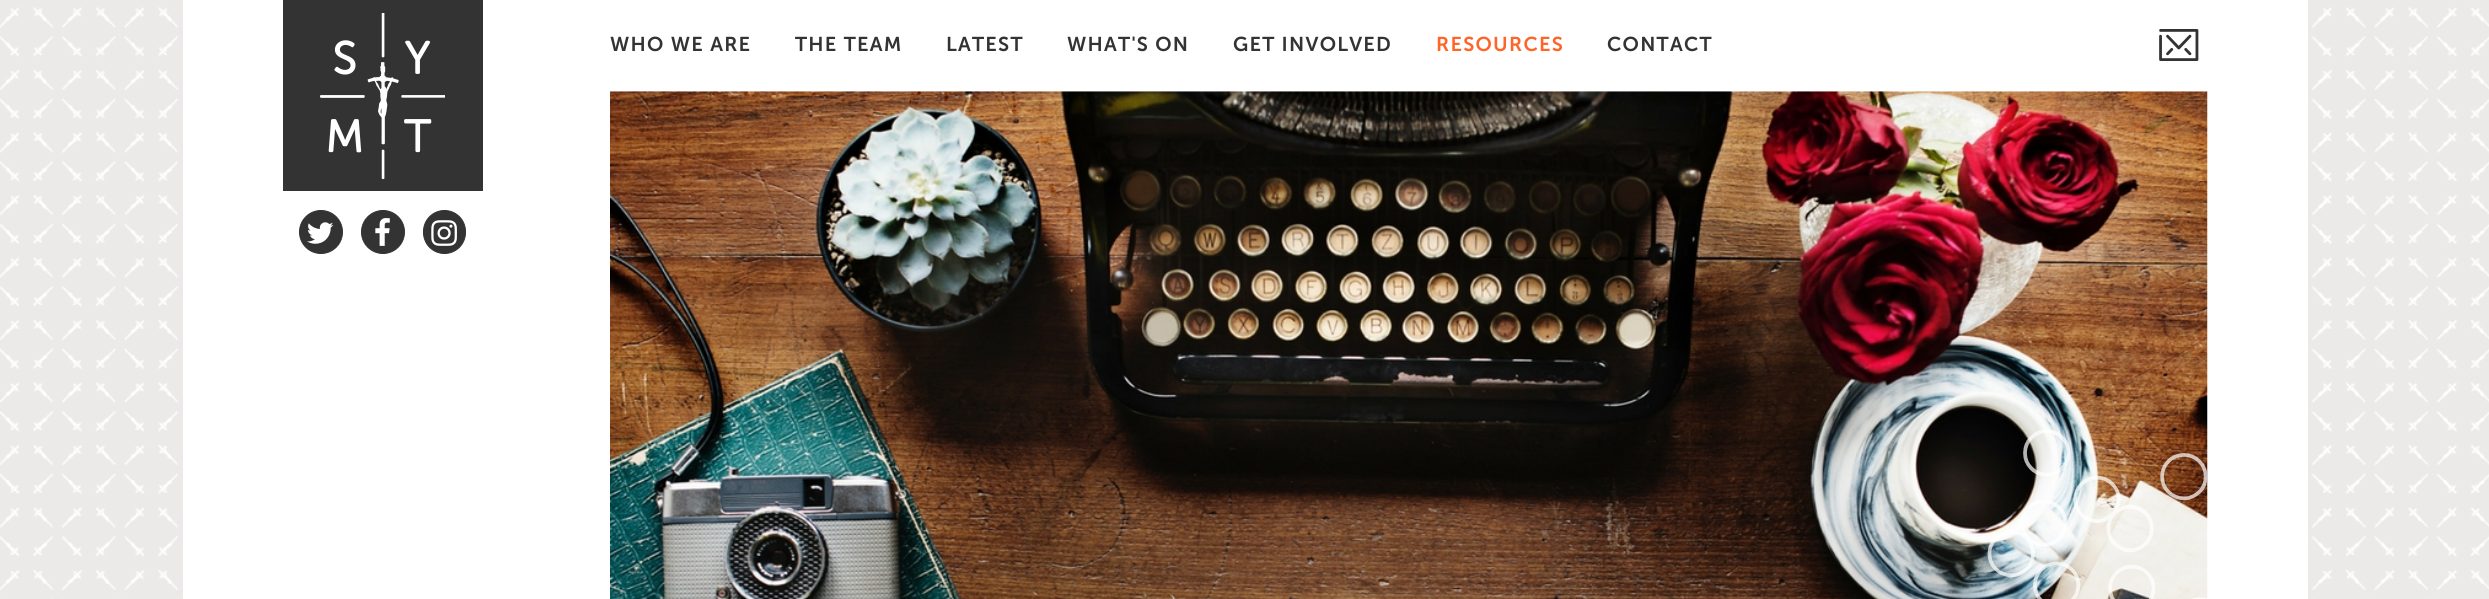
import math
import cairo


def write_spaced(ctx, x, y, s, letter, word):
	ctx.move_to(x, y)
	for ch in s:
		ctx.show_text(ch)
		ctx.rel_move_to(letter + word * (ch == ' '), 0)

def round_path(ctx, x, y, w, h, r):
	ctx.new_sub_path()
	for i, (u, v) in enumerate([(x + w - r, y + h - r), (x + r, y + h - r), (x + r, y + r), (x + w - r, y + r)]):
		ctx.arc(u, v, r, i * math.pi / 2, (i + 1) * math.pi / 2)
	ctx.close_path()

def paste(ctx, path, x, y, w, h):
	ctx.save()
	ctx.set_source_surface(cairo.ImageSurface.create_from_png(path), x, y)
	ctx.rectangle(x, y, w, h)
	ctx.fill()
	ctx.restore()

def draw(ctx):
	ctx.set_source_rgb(0.922, 0.914, 0.914)
	ctx.paint()
	paste(ctx, 'media/1.png', 0, 7, 2489, 592)
	ctx.set_source_rgb(1, 1, 1)
	ctx.rectangle(183, 0, 2125, 599)
	ctx.fill()
	ctx.set_source_rgb(0.2, 0.2, 0.2)
	ctx.rectangle(283, 0, 200, 191)
	ctx.fill()
	paste(ctx, 'media/2.png', 320, 13, 125, 166)
	ctx.arc(321, 232, 21.5, 0, 2 * math.pi)
	ctx.fill_preserve()
	ctx.set_line_width(1)
	ctx.stroke()
	paste(ctx, 'media/3.png', 307, 222, 27, 22)
	ctx.arc(383, 232, 21.5, 0, 2 * math.pi)
	ctx.fill_preserve()
	ctx.stroke()
	paste(ctx, 'media/4.png', 375, 218, 15, 28)
	round_path(ctx, 423.5, 210.5, 42, 43, 21)
	ctx.fill_preserve()
	ctx.stroke()
	paste(ctx, 'media/5.png', 431, 220, 26, 26)
	ctx.select_font_face('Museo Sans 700 SemiBold')
	ctx.set_font_size(20)
	for x, y, s in [
		(610, 51, 'WHO WE ARE'),
		(795, 51, 'THE TEAM'),
		(946, 51, 'LATEST'),
		(1067, 51, 'WHAT\'S ON'),
		(1233, 51, 'GET INVOLVED'),
	]:
		write_spaced(ctx, x, y, s, 1.25, 0)
	ctx.set_source_rgb(1, 0.392, 0.157)
	write_spaced(ctx, 1436, 51, 'RESOURCES', 1.25, 0)
	ctx.set_source_rgb(0.2, 0.2, 0.2)
	write_spaced(ctx, 1607, 51, 'CONTACT', 1.25, 0)
	paste(ctx, 'media/6.png', 2159, 29, 40, 32)
	paste(ctx, 'media/7.png', 610, 91, 1598, 508)
	paste(ctx, 'media/8.png', 1987, 429, 221, 170)


surface = cairo.ImageSurface(cairo.FORMAT_RGB24, 2489, 599)
ctx = cairo.Context(surface)
options = cairo.FontOptions()
options.set_hint_metrics(cairo.HINT_METRICS_OFF)
options.set_hint_style(cairo.HINT_STYLE_NONE)
ctx.set_font_options(options)
ctx.set_miter_limit(4)
draw(ctx)
surface.write_to_png('image.png')
